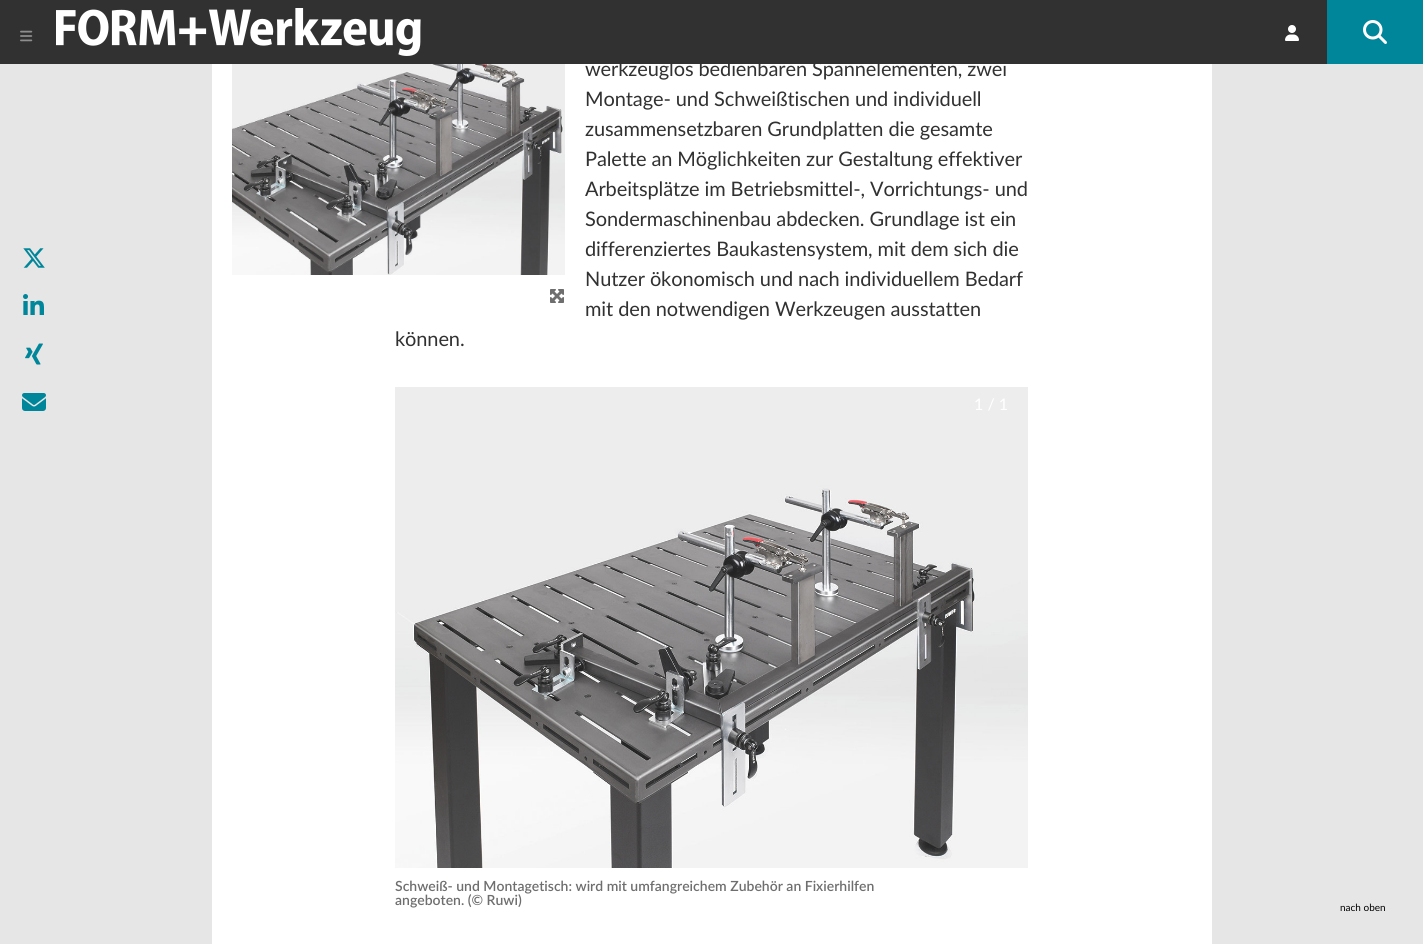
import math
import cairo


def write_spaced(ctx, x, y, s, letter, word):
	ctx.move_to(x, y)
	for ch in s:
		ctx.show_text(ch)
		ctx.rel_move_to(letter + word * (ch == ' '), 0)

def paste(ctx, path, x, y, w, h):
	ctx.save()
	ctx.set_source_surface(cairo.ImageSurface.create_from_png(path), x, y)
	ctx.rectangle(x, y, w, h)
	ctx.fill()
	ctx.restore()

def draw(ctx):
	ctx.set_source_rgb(0.906, 0.902, 0.902)
	ctx.paint()
	paste(ctx, 'media/1.png', 23, 248, 22, 20)
	paste(ctx, 'media/2.png', 23, 294, 21, 21)
	paste(ctx, 'media/3.png', 25, 343, 18, 22)
	paste(ctx, 'media/4.png', 22, 393, 24, 18)
	ctx.set_source_rgb(1, 1, 1)
	ctx.rectangle(212, 64, 1000, 880)
	ctx.fill()
	ctx.select_font_face('Lato')
	ctx.set_font_size(20)
	ctx.set_source_rgb(0.192, 0.192, 0.192)
	for x, y, s in [
		(585, 76, 'werkzeuglos bedienbaren Spannelementen, zwei'),
		(585, 106, 'Montage- und Schweißtischen und individuell'),
		(585, 136, 'zusammensetzbaren Grundplatten die gesamte'),
		(585, 166, 'Palette an Möglichkeiten zur Gestaltung effektiver'),
		(585, 196, 'Arbeitsplätze im Betriebsmittel-, Vorrichtungs- und'),
		(585, 226, 'Sondermaschinenbau abdecken. Grundlage ist ein'),
		(585, 256, 'differenziertes Baukastensystem, mit dem sich die'),
		(585, 286, 'Nutzer ökonomisch und nach individuellem Bedarf'),
		(585, 316, 'mit den notwendigen Werkzeugen ausstatten'),
		(395, 346, 'können.'),
	]:
		write_spaced(ctx, x, y, s, -0.1, 0)
	paste(ctx, 'media/5.png', 232, 64, 333, 211)
	paste(ctx, 'media/6.png', 550, 289, 14, 14)
	paste(ctx, 'media/7.png', 395, 387, 633, 481)
	ctx.set_font_size(16)
	ctx.set_source_rgb(1, 1, 1)
	ctx.move_to(974, 410)
	ctx.show_text('1 / 1')
	ctx.select_font_face('Lato SemiBold')
	ctx.set_font_size(14)
	ctx.set_source_rgb(0.431, 0.431, 0.431)
	ctx.move_to(395, 891)
	ctx.show_text('Schweiß- und Montagetisch: wird mit umfangreichem Zubehör an Fixierhilfen')
	ctx.move_to(395, 905)
	ctx.show_text('angeboten. (© Ruwi)')
	ctx.set_source_rgb(0.192, 0.192, 0.192)
	ctx.rectangle(0, 0, 1327, 64)
	ctx.fill()
	paste(ctx, 'media/8.png', 20, 30, 13, 12)
	paste(ctx, 'media/9.png', 56, 8, 365, 48)
	paste(ctx, 'media/10.png', 1285, 25, 14, 16)
	ctx.set_source_rgb(0, 0.525, 0.604)
	ctx.rectangle(1327, 0, 96, 64)
	ctx.fill()
	paste(ctx, 'media/11.png', 1363, 20, 24, 24)
	ctx.select_font_face('Lato')
	ctx.set_font_size(10)
	ctx.set_source_rgb(0, 0, 0)
	ctx.move_to(1340, 911)
	ctx.show_text('nach oben')


surface = cairo.ImageSurface(cairo.FORMAT_RGB24, 1423, 944)
ctx = cairo.Context(surface)
options = cairo.FontOptions()
options.set_hint_metrics(cairo.HINT_METRICS_OFF)
options.set_hint_style(cairo.HINT_STYLE_NONE)
ctx.set_font_options(options)
ctx.set_miter_limit(4)
draw(ctx)
surface.write_to_png('image.png')
